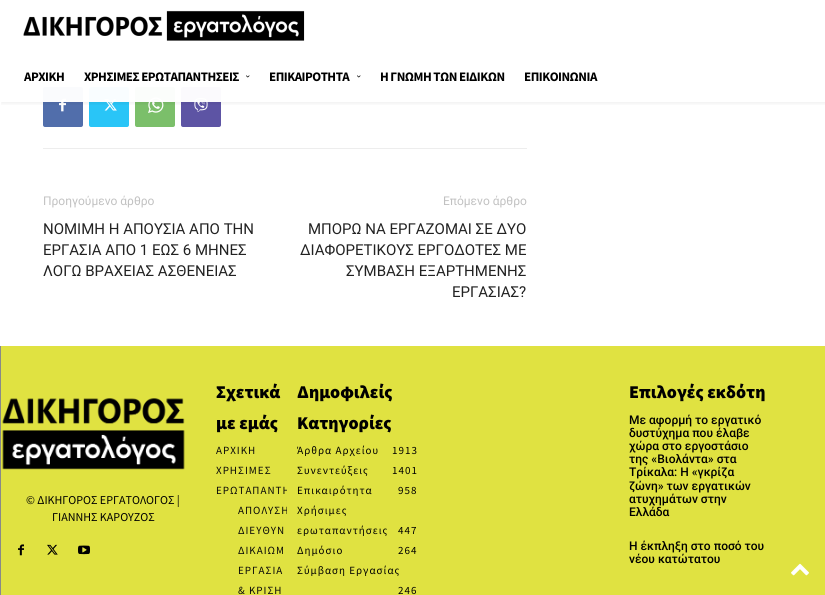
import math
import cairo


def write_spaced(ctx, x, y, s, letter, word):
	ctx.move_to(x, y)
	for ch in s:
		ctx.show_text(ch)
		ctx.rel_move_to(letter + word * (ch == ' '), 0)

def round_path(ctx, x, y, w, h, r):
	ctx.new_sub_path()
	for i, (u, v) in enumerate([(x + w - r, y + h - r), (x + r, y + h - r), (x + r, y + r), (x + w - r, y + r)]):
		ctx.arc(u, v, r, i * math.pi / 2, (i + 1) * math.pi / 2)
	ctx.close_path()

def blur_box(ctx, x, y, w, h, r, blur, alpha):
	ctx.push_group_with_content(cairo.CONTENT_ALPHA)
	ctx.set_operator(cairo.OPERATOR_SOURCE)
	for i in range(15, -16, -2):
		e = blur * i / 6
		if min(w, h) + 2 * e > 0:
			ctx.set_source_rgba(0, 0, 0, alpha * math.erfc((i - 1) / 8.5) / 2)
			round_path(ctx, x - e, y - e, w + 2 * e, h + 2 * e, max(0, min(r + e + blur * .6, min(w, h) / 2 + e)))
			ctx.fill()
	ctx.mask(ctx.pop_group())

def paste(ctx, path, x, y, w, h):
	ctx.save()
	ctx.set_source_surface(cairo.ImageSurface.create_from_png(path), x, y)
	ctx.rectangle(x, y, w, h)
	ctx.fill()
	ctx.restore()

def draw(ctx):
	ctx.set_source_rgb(1, 1, 1)
	ctx.paint()
	ctx.set_source_rgb(0.929, 0.929, 0.929)
	ctx.rectangle(43, 30, 484, 1)
	ctx.fill()
	ctx.set_source_rgb(0.318, 0.431, 0.671)
	round_path(ctx, 43, 87, 40, 40, 2)
	ctx.fill()
	paste(ctx, 'media/3.png', 59, 98, 7, 14)
	ctx.set_source_rgb(0.161, 0.773, 0.965)
	round_path(ctx, 89, 87, 40, 40, 2)
	ctx.fill()
	paste(ctx, 'media/4.png', 104, 99, 13, 12)
	ctx.set_source_rgb(0.482, 0.749, 0.416)
	round_path(ctx, 135, 87, 40, 40, 2)
	ctx.fill()
	paste(ctx, 'media/5.png', 148, 97, 16, 16)
	ctx.set_source_rgb(0.365, 0.329, 0.643)
	round_path(ctx, 181, 87, 40, 40, 2)
	ctx.fill()
	paste(ctx, 'media/6.png', 194, 98, 14, 14)
	ctx.set_source_rgba(1, 1, 1, 0.97)
	ctx.rectangle(43, 30, 484, 72)
	ctx.fill()
	paste(ctx, 'media/1.png', 23, 10, 282, 31)
	ctx.save()
	ctx.rectangle(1, 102, 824, 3)
	ctx.clip()
	ctx.set_source_rgb(0, 0, 0)
	blur_box(ctx, 1, 2, 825, 102, 0, 2, 0.06)
	ctx.restore()
	ctx.select_font_face('Source Sans Pro', cairo.FONT_SLANT_NORMAL, cairo.FONT_WEIGHT_BOLD)
	ctx.set_font_size(13)
	ctx.set_source_rgb(0, 0, 0)
	write_spaced(ctx, 24, 81, 'ΑΡΧΙΚΗ', -0.5, 0)
	write_spaced(ctx, 84, 81, 'ΧΡΗΣΙΜΕΣ ΕΡΩΤΑΠΑΝΤΗΣΕΙΣ', -0.5, 0)
	paste(ctx, 'media/2.png', 246, 75, 4, 3)
	write_spaced(ctx, 269, 81, 'ΕΠΙΚΑΙΡΟΤΗΤΑ', -0.5, 0)
	paste(ctx, 'media/2.png', 357, 75, 4, 3)
	write_spaced(ctx, 380, 81, 'Η ΓΝΩΜΗ ΤΩΝ ΕΙΔΙΚΩΝ', -0.5, 0)
	write_spaced(ctx, 524, 81, 'ΕΠΙΚΟΙΝΩΝΙΑ', -0.5, 0)
	ctx.set_source_rgb(0.929, 0.929, 0.929)
	ctx.rectangle(43, 148, 484, 1)
	ctx.fill()
	ctx.select_font_face('Roboto')
	ctx.set_font_size(12)
	ctx.set_source_rgb(0.757, 0.757, 0.757)
	ctx.move_to(43, 205)
	ctx.show_text('Προηγούμενο άρθρο')
	ctx.set_font_size(15)
	ctx.set_source_rgb(0.133, 0.133, 0.133)
	for x, y, s in [
		(43, 234, 'ΝΟΜΙΜΗ Η ΑΠΟΥΣΙΑ ΑΠΟ ΤΗΝ'),
		(43, 255, 'ΕΡΓΑΣΙΑ ΑΠΟ 1 ΕΩΣ 6 ΜΗΝΕΣ'),
		(43, 276, 'ΛΟΓΩ ΒΡΑΧΕΙΑΣ ΑΣΘΕΝΕΙΑΣ'),
	]:
		ctx.move_to(x, y)
		ctx.show_text(s)
	ctx.set_font_size(12)
	ctx.set_source_rgb(0.757, 0.757, 0.757)
	ctx.move_to(443, 205)
	ctx.show_text('Επόμενο άρθρο')
	ctx.set_font_size(15)
	ctx.set_source_rgb(0.133, 0.133, 0.133)
	for x, y, s in [
		(308, 234, 'ΜΠΟΡΩ ΝΑ ΕΡΓΑΖΟΜΑΙ ΣΕ ΔΥΟ'),
		(300, 255, 'ΔΙΑΦΟΡΕΤΙΚΟΥΣ ΕΡΓΟΔΟΤΕΣ ΜΕ'),
		(346, 276, 'ΣΥΜΒΑΣΗ ΕΞΑΡΤΗΜΕΝΗΣ'),
		(452, 297, 'ΕΡΓΑΣΙΑΣ?'),
	]:
		ctx.move_to(x, y)
		ctx.show_text(s)
	ctx.set_source_rgb(0.537, 0.537, 0.537)
	ctx.rectangle(0, 346, 1, 249)
	ctx.fill()
	ctx.set_source_rgb(0.878, 0.886, 0.255)
	ctx.rectangle(1, 346, 824, 249)
	ctx.fill()
	paste(ctx, 'media/7.png', 2, 398, 183, 72)
	ctx.select_font_face('Source Sans Pro')
	ctx.set_font_size(12)
	ctx.set_source_rgb(0, 0, 0)
	ctx.move_to(26, 504)
	ctx.show_text('© ΔΙΚΗΓΟΡΟΣ ΕΡΓΑΤΟΛΟΓΟΣ |')
	ctx.move_to(52, 521)
	ctx.show_text('ΓΙΑΝΝΗΣ ΚΑΡΟΥΖΟΣ')
	paste(ctx, 'media/8.png', 18, 544, 6, 12)
	paste(ctx, 'media/9.png', 47, 544, 11, 11)
	paste(ctx, 'media/10.png', 78, 545, 12, 10)
	ctx.select_font_face('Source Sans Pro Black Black')
	ctx.set_font_size(18)
	ctx.move_to(216, 398)
	ctx.show_text('Σχετικά')
	ctx.move_to(216, 429)
	ctx.show_text('με εμάς')
	ctx.select_font_face('Source Sans Pro')
	ctx.set_font_size(11)
	ctx.set_source_rgb(0.039, 0.039, 0.039)
	write_spaced(ctx, 216, 454, 'ΑΡΧΙΚΗ', 1, 0)
	write_spaced(ctx, 216, 474, 'ΧΡΗΣΙΜΕΣ', 1, 0)
	ctx.save()
	ctx.rectangle(216, 440, 71, 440)
	ctx.clip()
	write_spaced(ctx, 216, 494, 'ΕΡΩΤΑΠΑΝΤΗ', 1, 0)
	write_spaced(ctx, 238, 514, 'ΑΠΟΛΥΣΗ', 1, 0)
	ctx.restore()
	for x, y, s in [
		(238, 534, 'ΔΙΕΥΘΥΝ'),
		(238, 554, 'ΔΙΚΑΙΩΜ'),
		(238, 574, 'ΕΡΓΑΣΙΑ'),
		(238, 594, '& ΚΡΙΣΗ'),
	]:
		write_spaced(ctx, x, y, s, 1, 0)
	ctx.select_font_face('Source Sans Pro Black Black')
	ctx.set_font_size(18)
	ctx.set_source_rgb(0, 0, 0)
	ctx.move_to(297, 398)
	ctx.show_text('Δημοφιλείς')
	ctx.move_to(297, 429)
	ctx.show_text('Κατηγορίες')
	ctx.select_font_face('Source Sans Pro')
	ctx.set_font_size(11)
	for x, y, s in [
		(297, 454, 'Άρθρα Αρχείου'),
		(392, 454, '1913'),
		(297, 474, 'Συνεντεύξεις'),
		(392, 474, '1401'),
		(297, 494, 'Επικαιρότητα'),
		(398, 494, '958'),
		(297, 514, 'Χρήσιμες'),
		(297, 534, 'ερωταπαντήσεις'),
		(398, 534, '447'),
		(297, 554, 'Δημόσιο'),
		(398, 554, '264'),
		(297, 574, 'Σύμβαση Εργασίας'),
		(398, 594, '246'),
	]:
		write_spaced(ctx, x, y, s, 1, 0)
	ctx.select_font_face('Source Sans Pro Black Black')
	ctx.set_font_size(18)
	ctx.move_to(629, 398)
	ctx.show_text('Επιλογές εκδότη')
	ctx.select_font_face('Roboto Medium')
	ctx.set_font_size(12)
	for x, y, s in [
		(629, 424, 'Με αφορμή το εργατικό'),
		(629, 437, 'δυστύχημα που έλαβε'),
		(629, 450, 'χώρα στο εργοστάσιο'),
		(629, 463, 'της «Βιολάντα» στα'),
		(629, 476, 'Τρίκαλα: Η «γκρίζα'),
		(629, 490, 'ζώνη» των εργατικών'),
		(629, 503, 'ατυχημάτων στην'),
		(629, 516, 'Ελλάδα'),
		(629, 550, 'Η έκπληξη στο ποσό του'),
		(629, 563, 'νέου κατώτατου'),
	]:
		ctx.move_to(x, y)
		ctx.show_text(s)
	paste(ctx, 'media/11.png', 791, 563, 18, 13)


surface = cairo.ImageSurface(cairo.FORMAT_RGB24, 825, 595)
ctx = cairo.Context(surface)
options = cairo.FontOptions()
options.set_hint_metrics(cairo.HINT_METRICS_OFF)
options.set_hint_style(cairo.HINT_STYLE_NONE)
ctx.set_font_options(options)
ctx.set_miter_limit(4)
draw(ctx)
surface.write_to_png('image.png')
